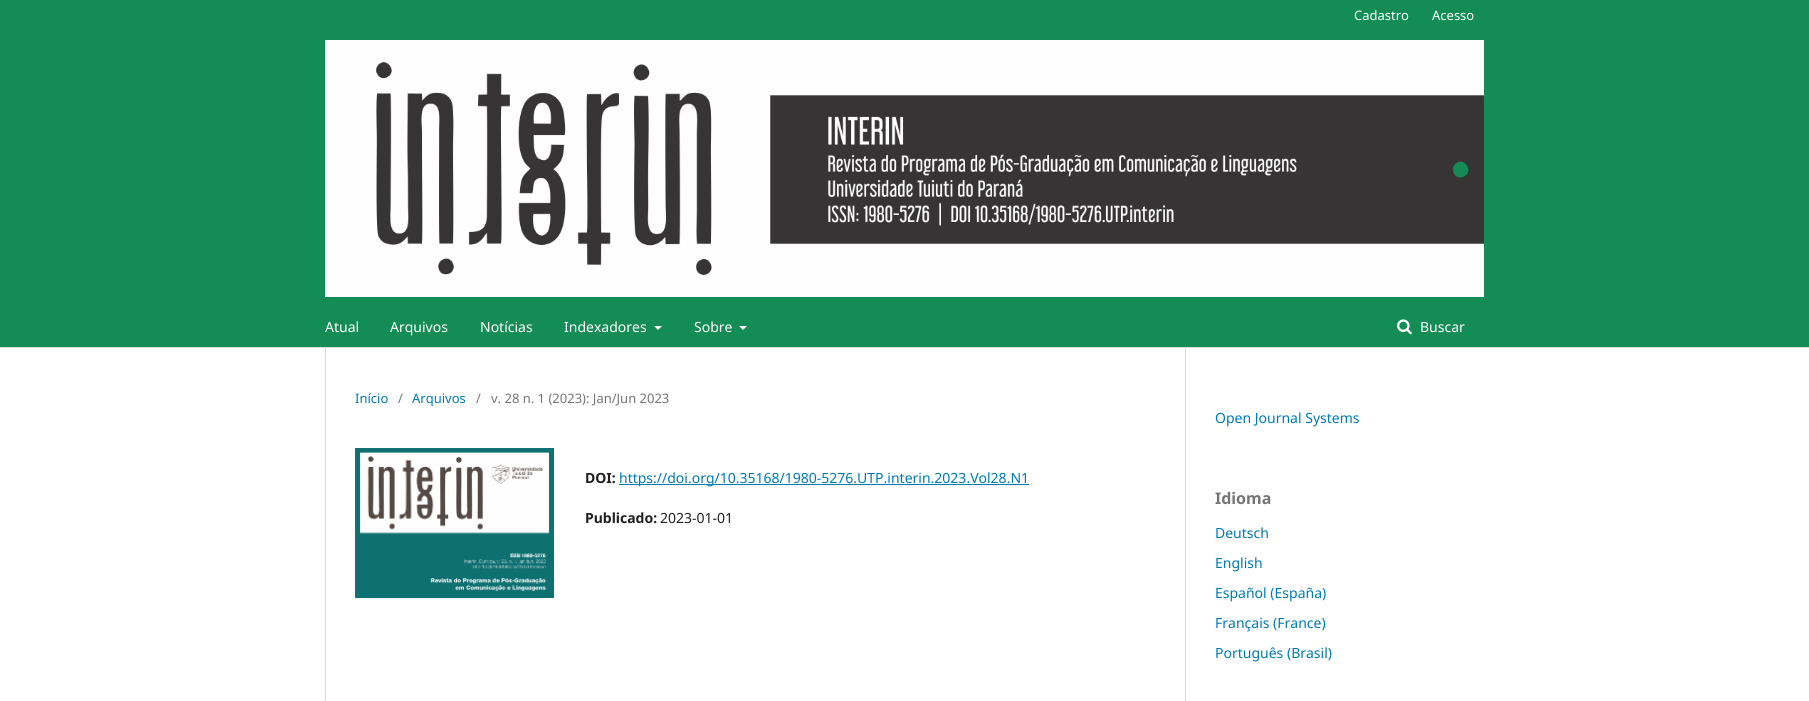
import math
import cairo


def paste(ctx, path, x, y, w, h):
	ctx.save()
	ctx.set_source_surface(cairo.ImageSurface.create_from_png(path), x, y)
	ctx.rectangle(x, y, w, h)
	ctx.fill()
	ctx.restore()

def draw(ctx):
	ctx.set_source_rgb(1, 1, 1)
	ctx.paint()
	ctx.set_source_rgb(0.082, 0.549, 0.337)
	ctx.rectangle(0, 0, 1809, 347)
	ctx.fill()
	ctx.set_source_rgb(0.867, 0.867, 0.867)
	ctx.rectangle(0, 347, 1809, 1)
	ctx.fill()
	ctx.select_font_face('Noto Sans')
	ctx.set_font_size(13)
	ctx.set_source_rgb(1, 1, 1)
	ctx.move_to(1354, 20)
	ctx.show_text('Cadastro')
	ctx.move_to(1432, 20)
	ctx.show_text('Acesso')
	paste(ctx, 'media/1.png', 325, 40, 1159, 257)
	ctx.set_font_size(14)
	for x, y, s in [
		(325, 332, 'Atual'),
		(390, 332, 'Arquivos'),
		(480, 332, 'Notícias'),
		(564, 332, 'Indexadores'),
	]:
		ctx.move_to(x, y)
		ctx.show_text(s)
	ctx.new_path()
	ctx.move_to(654, 326)
	ctx.line_to(662, 326)
	ctx.line_to(658, 330)
	ctx.close_path()
	ctx.fill()
	ctx.move_to(694, 332)
	ctx.show_text('Sobre')
	ctx.new_path()
	ctx.move_to(739, 326)
	ctx.line_to(747, 326)
	ctx.line_to(743, 330)
	ctx.close_path()
	ctx.fill()
	paste(ctx, 'media/2.png', 1397, 319, 15, 16)
	ctx.move_to(1420, 332)
	ctx.show_text('Buscar')
	ctx.set_source_rgb(0.867, 0.867, 0.867)
	ctx.rectangle(325, 348, 1, 353)
	ctx.fill()
	ctx.set_font_size(13)
	ctx.set_source_rgb(0, 0.478, 0.698)
	ctx.move_to(355, 403)
	ctx.show_text('Início')
	ctx.set_source_rgb(0.459, 0.459, 0.459)
	ctx.move_to(398, 403)
	ctx.show_text('/')
	ctx.set_source_rgb(0, 0.478, 0.698)
	ctx.move_to(412, 403)
	ctx.show_text('Arquivos')
	ctx.set_source_rgb(0.459, 0.459, 0.459)
	ctx.move_to(476, 403)
	ctx.show_text('/')
	ctx.move_to(491, 403)
	ctx.show_text('v. 28 n. 1 (2023): Jan/Jun 2023')
	paste(ctx, 'media/3.png', 355, 448, 199, 150)
	ctx.select_font_face('Noto Sans', cairo.FONT_SLANT_NORMAL, cairo.FONT_WEIGHT_BOLD)
	ctx.set_font_size(14)
	ctx.set_source_rgb(0.129, 0.129, 0.129)
	ctx.move_to(585, 483)
	ctx.show_text('DOI:')
	ctx.set_source_rgb(0, 0.478, 0.698)
	ctx.rectangle(619, 484, 410, 1)
	ctx.fill()
	ctx.select_font_face('Noto Sans')
	ctx.move_to(619, 483)
	ctx.show_text('https://doi.org/10.35168/1980-5276.UTP.interin.2023.Vol28.N1')
	ctx.select_font_face('Noto Sans', cairo.FONT_SLANT_NORMAL, cairo.FONT_WEIGHT_BOLD)
	ctx.set_source_rgb(0.129, 0.129, 0.129)
	ctx.move_to(585, 523)
	ctx.show_text('Publicado:')
	ctx.select_font_face('Noto Sans')
	ctx.move_to(660, 523)
	ctx.show_text('2023-01-01')
	ctx.set_source_rgb(0.867, 0.867, 0.867)
	ctx.rectangle(1185, 348, 1, 353)
	ctx.fill()
	ctx.set_source_rgb(0, 0.478, 0.698)
	ctx.move_to(1215, 423)
	ctx.show_text('Open Journal Systems')
	ctx.select_font_face('Noto Sans', cairo.FONT_SLANT_NORMAL, cairo.FONT_WEIGHT_BOLD)
	ctx.set_font_size(16)
	ctx.set_source_rgb(0.459, 0.459, 0.459)
	ctx.move_to(1215, 504)
	ctx.show_text('Idioma')
	ctx.select_font_face('Noto Sans')
	ctx.set_font_size(14)
	ctx.set_source_rgb(0, 0.478, 0.698)
	for x, y, s in [
		(1215, 538, 'Deutsch'),
		(1215, 568, 'English'),
		(1215, 598, 'Español (España)'),
		(1215, 628, 'Français (France)'),
		(1215, 658, 'Português (Brasil)'),
	]:
		ctx.move_to(x, y)
		ctx.show_text(s)


surface = cairo.ImageSurface(cairo.FORMAT_RGB24, 1809, 701)
ctx = cairo.Context(surface)
options = cairo.FontOptions()
options.set_hint_metrics(cairo.HINT_METRICS_OFF)
options.set_hint_style(cairo.HINT_STYLE_NONE)
ctx.set_font_options(options)
ctx.set_miter_limit(4)
draw(ctx)
surface.write_to_png('image.png')
